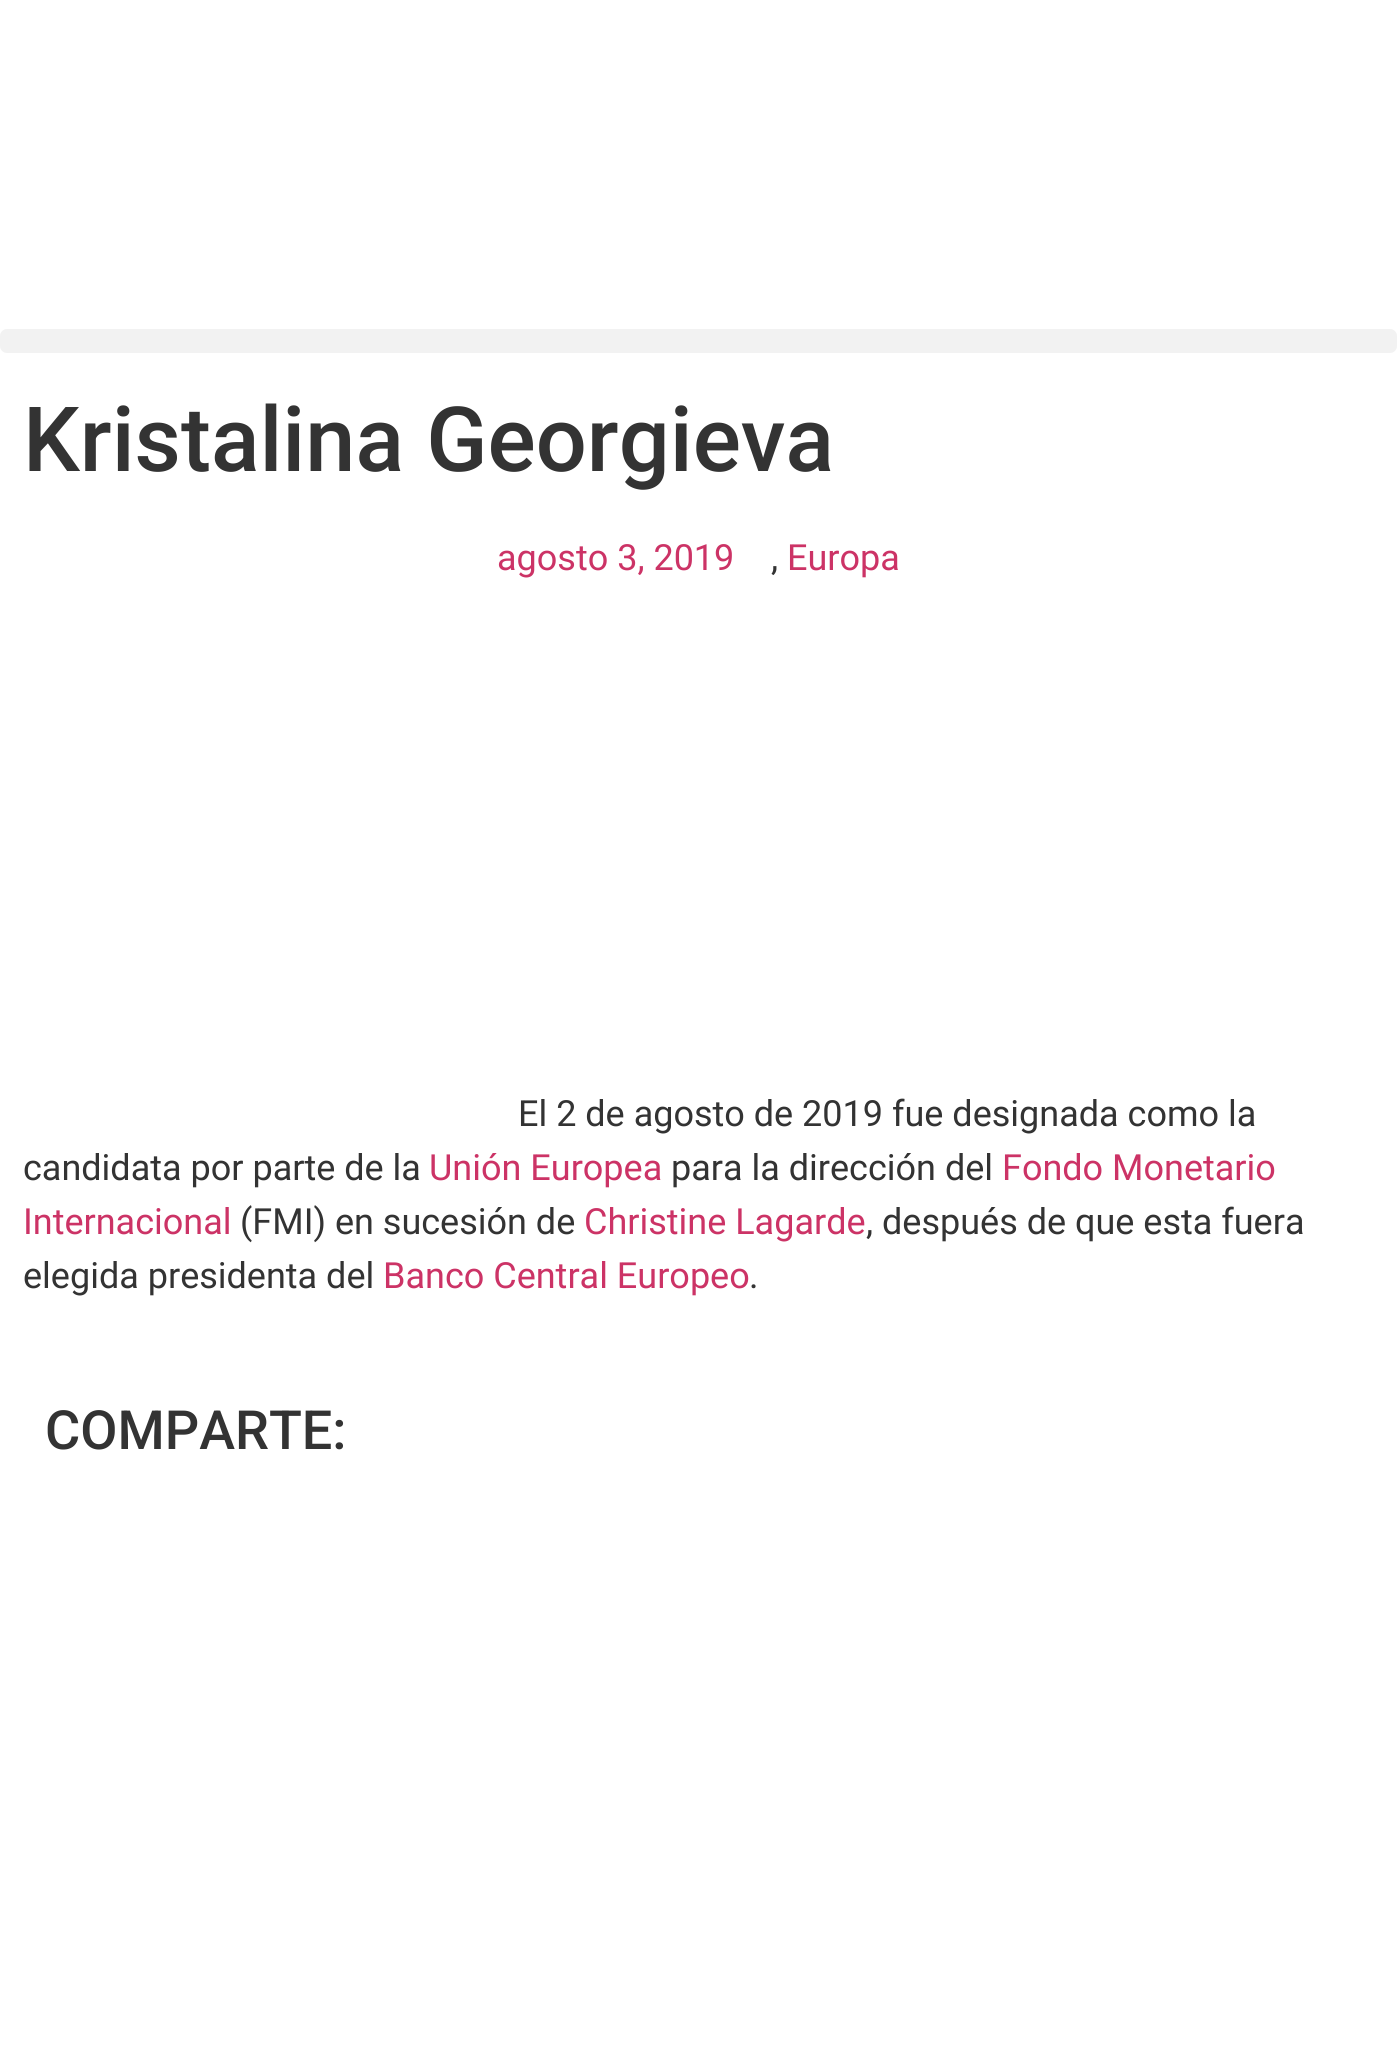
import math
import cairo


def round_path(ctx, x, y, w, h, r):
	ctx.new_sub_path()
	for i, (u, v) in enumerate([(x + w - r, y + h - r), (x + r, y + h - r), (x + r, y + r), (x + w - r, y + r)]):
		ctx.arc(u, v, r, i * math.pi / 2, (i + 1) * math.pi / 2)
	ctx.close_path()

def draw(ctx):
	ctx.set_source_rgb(1, 1, 1)
	ctx.paint()
	ctx.set_source_rgb(0.949, 0.949, 0.949)
	round_path(ctx, 0, 329, 1397, 24, 7)
	ctx.fill()
	ctx.select_font_face('Roboto Medium')
	ctx.set_font_size(90)
	ctx.set_source_rgb(0.2, 0.2, 0.2)
	ctx.move_to(23, 471)
	ctx.show_text('Kristalina Georgieva')
	ctx.select_font_face('Roboto')
	ctx.set_font_size(36)
	ctx.set_source_rgb(0.8, 0.2, 0.4)
	ctx.move_to(497, 570)
	ctx.show_text('agosto 3, 2019')
	ctx.set_source_rgb(0.2, 0.2, 0.2)
	ctx.move_to(771, 570)
	ctx.show_text(',')
	ctx.set_source_rgb(0.8, 0.2, 0.4)
	ctx.move_to(787, 570)
	ctx.show_text('Europa')
	ctx.set_source_rgb(0.2, 0.2, 0.2)
	ctx.move_to(518, 1126)
	ctx.show_text('El 2 de agosto de 2019 fue designada como la')
	ctx.move_to(23, 1180)
	ctx.show_text('candidata por parte de la')
	ctx.set_source_rgb(0.8, 0.2, 0.4)
	ctx.move_to(429, 1180)
	ctx.show_text('Unión Europea')
	ctx.set_source_rgb(0.2, 0.2, 0.2)
	ctx.move_to(671, 1180)
	ctx.show_text('para la dirección del')
	ctx.set_source_rgb(0.8, 0.2, 0.4)
	ctx.move_to(1002, 1180)
	ctx.show_text('Fondo Monetario')
	ctx.move_to(23, 1234)
	ctx.show_text('Internacional')
	ctx.set_source_rgb(0.2, 0.2, 0.2)
	ctx.move_to(240, 1234)
	ctx.show_text('(FMI) en sucesión de')
	ctx.set_source_rgb(0.8, 0.2, 0.4)
	ctx.move_to(584, 1234)
	ctx.show_text('Christine Lagarde')
	ctx.set_source_rgb(0.2, 0.2, 0.2)
	ctx.move_to(866, 1234)
	ctx.show_text(', después de que esta fuera')
	ctx.move_to(23, 1288)
	ctx.show_text('elegida presidenta del')
	ctx.set_source_rgb(0.8, 0.2, 0.4)
	ctx.move_to(383, 1288)
	ctx.show_text('Banco Central Europeo')
	ctx.set_source_rgb(0.2, 0.2, 0.2)
	ctx.move_to(749, 1288)
	ctx.show_text('.')
	ctx.select_font_face('Roboto Medium')
	ctx.set_font_size(54)
	ctx.move_to(45, 1449)
	ctx.show_text('COMPARTE:')


surface = cairo.ImageSurface(cairo.FORMAT_RGB24, 1397, 2046)
ctx = cairo.Context(surface)
options = cairo.FontOptions()
options.set_hint_metrics(cairo.HINT_METRICS_OFF)
options.set_hint_style(cairo.HINT_STYLE_NONE)
ctx.set_font_options(options)
ctx.set_miter_limit(4)
draw(ctx)
surface.write_to_png('image.png')
